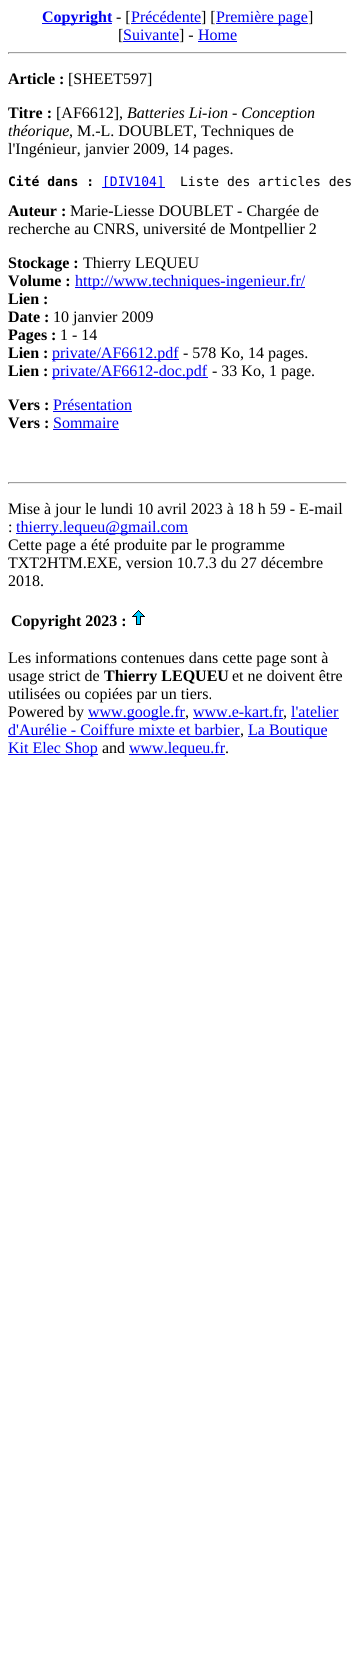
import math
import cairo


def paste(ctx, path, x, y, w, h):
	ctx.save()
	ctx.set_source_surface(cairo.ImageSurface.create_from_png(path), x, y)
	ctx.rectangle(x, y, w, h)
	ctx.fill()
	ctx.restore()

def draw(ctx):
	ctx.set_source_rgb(1, 1, 1)
	ctx.paint()
	ctx.set_source_rgb(0, 0, 0.933)
	ctx.rectangle(42, 23, 70, 1)
	ctx.fill()
	ctx.select_font_face('Liberation Serif', cairo.FONT_SLANT_NORMAL, cairo.FONT_WEIGHT_BOLD)
	ctx.set_font_size(16)
	ctx.move_to(42, 22)
	ctx.show_text('Copyright')
	ctx.select_font_face('Liberation Serif')
	ctx.set_source_rgb(0, 0, 0)
	ctx.move_to(116, 22)
	ctx.show_text('- [')
	ctx.set_source_rgb(0, 0, 0.933)
	ctx.move_to(131, 22)
	ctx.show_text('Précédente')
	ctx.rectangle(131, 23, 70, 1)
	ctx.fill()
	ctx.set_source_rgb(0, 0, 0)
	ctx.move_to(201, 22)
	ctx.show_text('] [')
	ctx.set_source_rgb(0, 0, 0.933)
	ctx.rectangle(216, 23, 92, 1)
	ctx.fill()
	ctx.move_to(216, 22)
	ctx.show_text('Première page')
	ctx.set_source_rgb(0, 0, 0)
	ctx.move_to(308, 22)
	ctx.show_text(']')
	ctx.move_to(118, 40)
	ctx.show_text('[')
	ctx.set_source_rgb(0, 0, 0.933)
	ctx.move_to(123, 40)
	ctx.show_text('Suivante')
	ctx.rectangle(123, 41, 56, 1)
	ctx.fill()
	ctx.set_source_rgb(0, 0, 0)
	ctx.move_to(179, 40)
	ctx.show_text('] -')
	ctx.set_source_rgb(0, 0, 0.933)
	ctx.move_to(198, 40)
	ctx.show_text('Home')
	ctx.rectangle(198, 41, 39, 1)
	ctx.fill()
	ctx.set_source_rgb(0.624, 0.624, 0.624)
	ctx.rectangle(8, 52, 339, 1)
	ctx.fill()
	ctx.set_source_rgb(0.933, 0.933, 0.933)
	ctx.rectangle(346, 52, 1, 2)
	ctx.rectangle(8, 53, 339, 1)
	ctx.fill()
	ctx.set_source_rgb(0.624, 0.624, 0.624)
	ctx.rectangle(8, 52, 1, 2)
	ctx.fill()
	ctx.select_font_face('Liberation Serif', cairo.FONT_SLANT_NORMAL, cairo.FONT_WEIGHT_BOLD)
	ctx.set_source_rgb(0, 0, 0)
	ctx.move_to(8, 84)
	ctx.show_text('Article :')
	ctx.select_font_face('Liberation Serif')
	ctx.move_to(68, 84)
	ctx.show_text('[SHEET597]')
	ctx.select_font_face('Liberation Serif', cairo.FONT_SLANT_NORMAL, cairo.FONT_WEIGHT_BOLD)
	ctx.move_to(8, 118)
	ctx.show_text('Titre :')
	ctx.select_font_face('Liberation Serif')
	ctx.move_to(56, 118)
	ctx.show_text('[AF6612],')
	ctx.select_font_face('Liberation Serif', cairo.FONT_SLANT_ITALIC)
	ctx.move_to(127, 118)
	ctx.show_text('Batteries Li-ion - Conception')
	ctx.move_to(8, 136)
	ctx.show_text('théorique')
	ctx.select_font_face('Liberation Serif')
	ctx.move_to(69, 136)
	ctx.show_text(', M.-L. DOUBLET, Techniques de')
	ctx.move_to(8, 154)
	ctx.show_text('l\'Ingénieur, janvier 2009, 14 pages.')
	ctx.select_font_face('DejaVu Sans Mono', cairo.FONT_SLANT_NORMAL, cairo.FONT_WEIGHT_BOLD)
	ctx.set_font_size(13)
	ctx.move_to(8, 186)
	ctx.show_text('Cité dans :')
	ctx.set_source_rgb(0, 0, 0.933)
	ctx.rectangle(102, 187, 63, 1)
	ctx.fill()
	ctx.select_font_face('DejaVu Sans Mono')
	ctx.move_to(102, 186)
	ctx.show_text('[DIV104]')
	ctx.set_source_rgb(0, 0, 0)
	ctx.move_to(180, 186)
	ctx.show_text('Liste des articles des')
	ctx.select_font_face('Liberation Serif', cairo.FONT_SLANT_NORMAL, cairo.FONT_WEIGHT_BOLD)
	ctx.set_font_size(16)
	ctx.move_to(8, 216)
	ctx.show_text('Auteur :')
	ctx.select_font_face('Liberation Serif')
	ctx.move_to(70, 216)
	ctx.show_text('Marie-Liesse DOUBLET - Chargée de')
	ctx.move_to(8, 234)
	ctx.show_text('recherche au CNRS, université de Montpellier 2')
	ctx.select_font_face('Liberation Serif', cairo.FONT_SLANT_NORMAL, cairo.FONT_WEIGHT_BOLD)
	ctx.move_to(8, 268)
	ctx.show_text('Stockage :')
	ctx.select_font_face('Liberation Serif')
	ctx.move_to(83, 268)
	ctx.show_text('Thierry LEQUEU')
	ctx.select_font_face('Liberation Serif', cairo.FONT_SLANT_NORMAL, cairo.FONT_WEIGHT_BOLD)
	ctx.move_to(8, 286)
	ctx.show_text('Volume :')
	ctx.set_source_rgb(0, 0, 0.933)
	ctx.rectangle(75, 287, 230, 1)
	ctx.fill()
	ctx.select_font_face('Liberation Serif')
	ctx.move_to(75, 286)
	ctx.show_text('http://www.techniques-ingenieur.fr/')
	ctx.select_font_face('Liberation Serif', cairo.FONT_SLANT_NORMAL, cairo.FONT_WEIGHT_BOLD)
	ctx.set_source_rgb(0, 0, 0)
	ctx.move_to(8, 304)
	ctx.show_text('Lien :')
	ctx.move_to(8, 322)
	ctx.show_text('Date :')
	ctx.select_font_face('Liberation Serif')
	ctx.move_to(53, 322)
	ctx.show_text('10 janvier 2009')
	ctx.select_font_face('Liberation Serif', cairo.FONT_SLANT_NORMAL, cairo.FONT_WEIGHT_BOLD)
	ctx.move_to(8, 340)
	ctx.show_text('Pages :')
	ctx.select_font_face('Liberation Serif')
	ctx.move_to(60, 340)
	ctx.show_text('1 - 14')
	ctx.select_font_face('Liberation Serif', cairo.FONT_SLANT_NORMAL, cairo.FONT_WEIGHT_BOLD)
	ctx.move_to(8, 358)
	ctx.show_text('Lien :')
	ctx.set_source_rgb(0, 0, 0.933)
	ctx.rectangle(52, 359, 127, 1)
	ctx.fill()
	ctx.select_font_face('Liberation Serif')
	ctx.move_to(52, 358)
	ctx.show_text('private/AF6612.pdf')
	ctx.set_source_rgb(0, 0, 0)
	ctx.move_to(183, 358)
	ctx.show_text('- 578 Ko, 14 pages.')
	ctx.select_font_face('Liberation Serif', cairo.FONT_SLANT_NORMAL, cairo.FONT_WEIGHT_BOLD)
	ctx.move_to(8, 376)
	ctx.show_text('Lien :')
	ctx.set_source_rgb(0, 0, 0.933)
	ctx.rectangle(52, 377, 156, 1)
	ctx.fill()
	ctx.select_font_face('Liberation Serif')
	ctx.move_to(52, 376)
	ctx.show_text('private/AF6612-doc.pdf')
	ctx.set_source_rgb(0, 0, 0)
	ctx.move_to(212, 376)
	ctx.show_text('- 33 Ko, 1 page.')
	ctx.select_font_face('Liberation Serif', cairo.FONT_SLANT_NORMAL, cairo.FONT_WEIGHT_BOLD)
	ctx.move_to(8, 410)
	ctx.show_text('Vers :')
	ctx.select_font_face('Liberation Serif')
	ctx.set_source_rgb(0, 0, 0.933)
	ctx.move_to(53, 410)
	ctx.show_text('Présentation')
	ctx.rectangle(53, 411, 79, 1)
	ctx.fill()
	ctx.select_font_face('Liberation Serif', cairo.FONT_SLANT_NORMAL, cairo.FONT_WEIGHT_BOLD)
	ctx.set_source_rgb(0, 0, 0)
	ctx.move_to(8, 428)
	ctx.show_text('Vers :')
	ctx.select_font_face('Liberation Serif')
	ctx.set_source_rgb(0, 0, 0.933)
	ctx.move_to(53, 428)
	ctx.show_text('Sommaire')
	ctx.rectangle(53, 429, 66, 1)
	ctx.fill()
	ctx.set_source_rgb(0.624, 0.624, 0.624)
	ctx.rectangle(8, 482, 339, 1)
	ctx.fill()
	ctx.set_source_rgb(0.933, 0.933, 0.933)
	ctx.rectangle(346, 482, 1, 2)
	ctx.rectangle(8, 483, 339, 1)
	ctx.fill()
	ctx.set_source_rgb(0.624, 0.624, 0.624)
	ctx.rectangle(8, 482, 1, 2)
	ctx.fill()
	ctx.set_source_rgb(0, 0, 0)
	ctx.move_to(8, 514)
	ctx.show_text('Mise à jour le lundi 10 avril 2023 à 18 h 59 - E-mail')
	ctx.move_to(8, 532)
	ctx.show_text(':')
	ctx.set_source_rgb(0, 0, 0.933)
	ctx.rectangle(16, 533, 172, 1)
	ctx.fill()
	ctx.move_to(16, 532)
	ctx.show_text('thierry.lequeu@gmail.com')
	ctx.set_source_rgb(0, 0, 0)
	for x, y, s in [
		(8, 550, 'Cette page a été produite par le programme'),
		(8, 568, 'TXT2HTM.EXE, version 10.7.3 du 27 décembre'),
		(8, 586, '2018.'),
	]:
		ctx.move_to(x, y)
		ctx.show_text(s)
	ctx.select_font_face('Liberation Serif', cairo.FONT_SLANT_NORMAL, cairo.FONT_WEIGHT_BOLD)
	ctx.move_to(11, 626)
	ctx.show_text('Copyright 2023 :')
	paste(ctx, 'media/1.png', 132, 610, 13, 15)
	ctx.select_font_face('Liberation Serif')
	ctx.move_to(8, 663)
	ctx.show_text('Les informations contenues dans cette page sont à')
	ctx.move_to(8, 681)
	ctx.show_text('usage strict de')
	ctx.select_font_face('Liberation Serif', cairo.FONT_SLANT_NORMAL, cairo.FONT_WEIGHT_BOLD)
	ctx.move_to(104, 681)
	ctx.show_text('Thierry LEQUEU')
	ctx.select_font_face('Liberation Serif')
	for x, y, s in [
		(232, 681, 'et ne doivent être'),
		(8, 699, 'utilisées ou copiées par un tiers.'),
		(8, 717, 'Powered by'),
	]:
		ctx.move_to(x, y)
		ctx.show_text(s)
	ctx.set_source_rgb(0, 0, 0.933)
	ctx.rectangle(88, 718, 97, 1)
	ctx.fill()
	ctx.move_to(88, 717)
	ctx.show_text('www.google.fr')
	ctx.set_source_rgb(0, 0, 0)
	ctx.move_to(185, 717)
	ctx.show_text(',')
	ctx.set_source_rgb(0, 0, 0.933)
	ctx.move_to(193, 717)
	ctx.show_text('www.e-kart.fr')
	ctx.rectangle(193, 718, 90, 1)
	ctx.fill()
	ctx.set_source_rgb(0, 0, 0)
	ctx.move_to(283, 717)
	ctx.show_text(',')
	ctx.set_source_rgb(0, 0, 0.933)
	ctx.move_to(291, 717)
	ctx.show_text('l\'atelier')
	ctx.rectangle(291, 718, 48, 1)
	ctx.fill()
	ctx.move_to(8, 735)
	ctx.show_text('d\'Aurélie - Coiffure mixte et barbier')
	ctx.rectangle(8, 736, 232, 1)
	ctx.fill()
	ctx.set_source_rgb(0, 0, 0)
	ctx.move_to(240, 735)
	ctx.show_text(',')
	ctx.set_source_rgb(0, 0, 0.933)
	ctx.rectangle(248, 736, 79, 1)
	ctx.fill()
	ctx.move_to(248, 735)
	ctx.show_text('La Boutique')
	ctx.rectangle(8, 754, 90, 1)
	ctx.fill()
	ctx.move_to(8, 753)
	ctx.show_text('Kit Elec Shop')
	ctx.set_source_rgb(0, 0, 0)
	ctx.move_to(102, 753)
	ctx.show_text('and')
	ctx.set_source_rgb(0, 0, 0.933)
	ctx.rectangle(129, 754, 96, 1)
	ctx.fill()
	ctx.move_to(129, 753)
	ctx.show_text('www.lequeu.fr')
	ctx.set_source_rgb(0, 0, 0)
	ctx.move_to(225, 753)
	ctx.show_text('.')


surface = cairo.ImageSurface(cairo.FORMAT_RGB24, 355, 1654)
ctx = cairo.Context(surface)
options = cairo.FontOptions()
options.set_hint_metrics(cairo.HINT_METRICS_OFF)
options.set_hint_style(cairo.HINT_STYLE_NONE)
ctx.set_font_options(options)
ctx.set_miter_limit(4)
draw(ctx)
surface.write_to_png('image.png')
